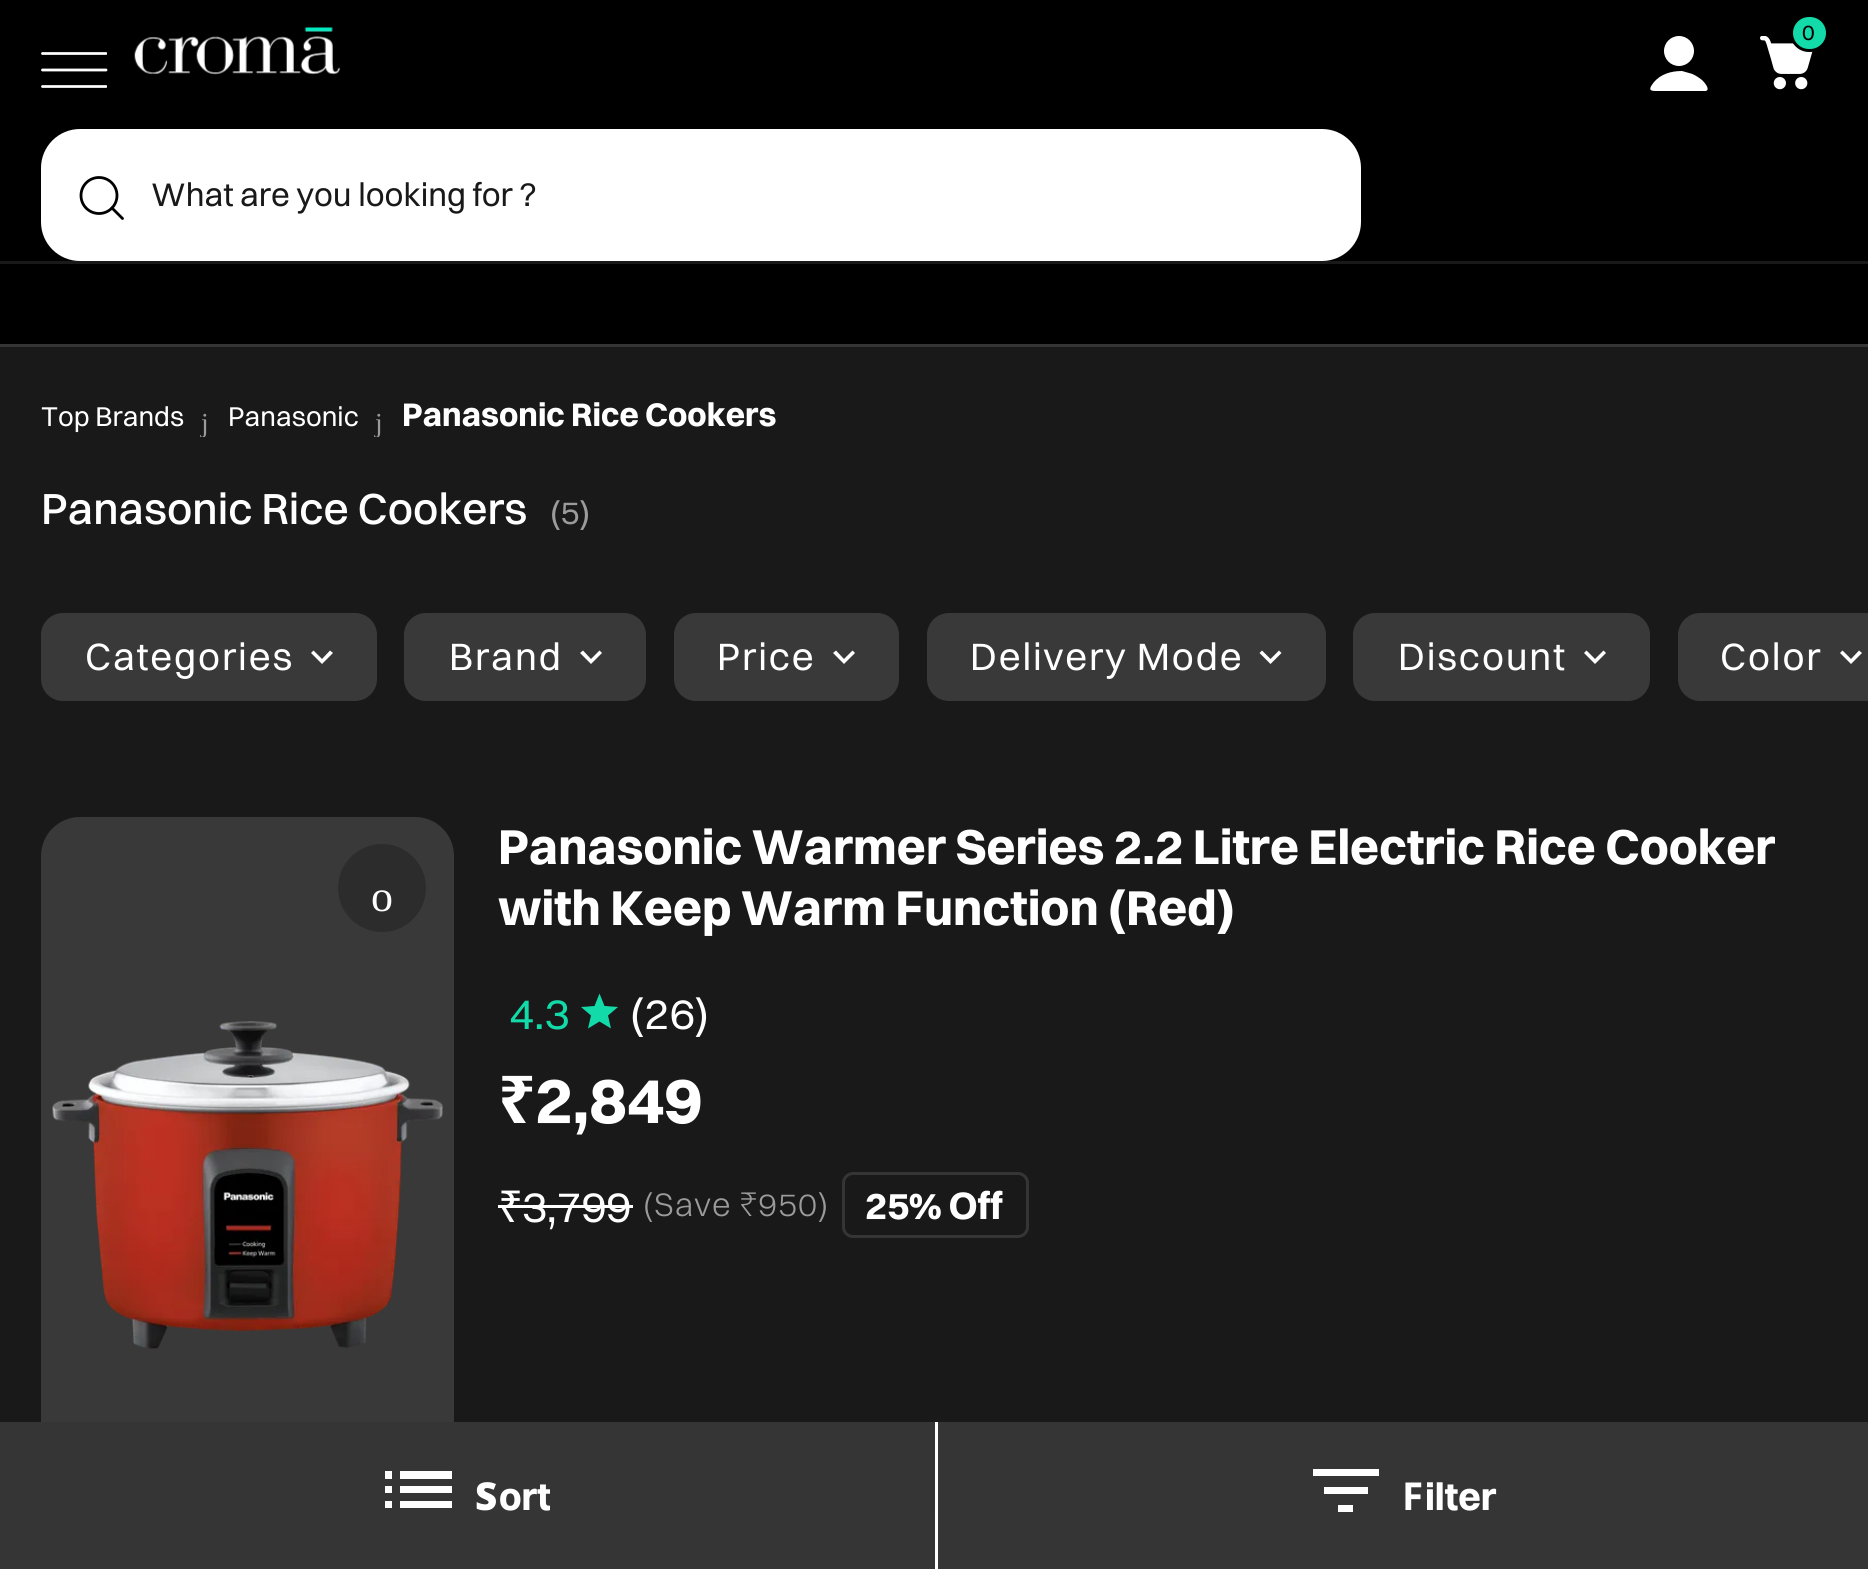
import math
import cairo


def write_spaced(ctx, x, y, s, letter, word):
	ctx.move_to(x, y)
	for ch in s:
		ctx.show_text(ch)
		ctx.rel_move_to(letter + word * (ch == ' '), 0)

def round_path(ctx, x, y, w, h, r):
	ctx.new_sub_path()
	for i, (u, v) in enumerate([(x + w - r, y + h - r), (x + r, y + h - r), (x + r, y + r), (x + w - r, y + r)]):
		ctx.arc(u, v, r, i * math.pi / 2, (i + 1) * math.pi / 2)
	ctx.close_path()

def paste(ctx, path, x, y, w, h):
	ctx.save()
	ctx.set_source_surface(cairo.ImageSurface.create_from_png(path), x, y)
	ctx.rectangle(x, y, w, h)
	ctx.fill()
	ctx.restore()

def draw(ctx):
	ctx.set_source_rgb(0.098, 0.098, 0.098)
	ctx.paint()
	ctx.set_source_rgb(0, 0, 0)
	ctx.rectangle(0, 0, 1868, 261)
	ctx.fill()
	paste(ctx, 'media/1.png', 1760, 36, 53, 54)
	ctx.set_source_rgb(0.071, 0.855, 0.659)
	round_path(ctx, 1791.5, 15.5, 36, 35, 17.5)
	ctx.fill_preserve()
	ctx.set_source_rgb(0, 0, 0)
	ctx.set_line_width(3)
	ctx.stroke()
	ctx.select_font_face('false')
	ctx.set_font_size(22)
	write_spaced(ctx, 1802, 40, '0', 1, 0)
	ctx.set_source_rgb(1, 1, 1)
	ctx.new_path()
	ctx.arc(1679, 51, 15, 0, 2 * math.pi)
	ctx.fill()
	ctx.new_path()
	ctx.move_to(1689, 73)
	ctx.line_to(1682, 71)
	ctx.curve_to(1671, 71, 1661, 74, 1654, 82)
	ctx.curve_to(1646, 92, 1652, 91, 1661, 91)
	ctx.line_to(1706, 91)
	ctx.curve_to(1711, 89, 1703, 81, 1702, 80)
	ctx.curve_to(1698, 77, 1694, 74, 1689, 73)
	ctx.close_path()
	ctx.fill()
	round_path(ctx, 41, 129, 1320, 132, 39)
	ctx.fill()
	ctx.arc(99, 195.5, 18, 0, 2 * math.pi)
	ctx.set_source_rgb(0, 0, 0)
	ctx.set_line_width(2.8)
	ctx.stroke()
	ctx.new_path()
	ctx.move_to(112, 208)
	ctx.line_to(122.5, 218.5)
	ctx.set_line_cap(cairo.LINE_CAP_ROUND)
	ctx.set_line_join(cairo.LINE_JOIN_ROUND)
	ctx.stroke()
	ctx.set_font_size(33)
	ctx.set_source_rgb(0.098, 0.098, 0.098)
	ctx.move_to(151, 206)
	ctx.show_text('What are you looking for ?')
	ctx.save()
	ctx.rectangle(41, 52, 66, 36)
	ctx.clip()
	ctx.new_path()
	ctx.move_to(42.5, 53.5)
	ctx.line_to(106, 53.5)
	ctx.set_source_rgb(1, 1, 1)
	ctx.set_line_join(cairo.LINE_JOIN_MITER)
	ctx.stroke()
	ctx.restore()
	ctx.new_path()
	ctx.move_to(42.5, 70)
	ctx.line_to(106, 70)
	ctx.set_source_rgb(1, 1, 1)
	ctx.set_line_join(cairo.LINE_JOIN_MITER)
	ctx.stroke()
	ctx.save()
	ctx.rectangle(41, 52, 66, 36)
	ctx.clip()
	ctx.new_path()
	ctx.move_to(42.5, 86.5)
	ctx.line_to(106, 86.5)
	ctx.stroke()
	ctx.restore()
	paste(ctx, 'media/2.png', 134, 27, 206, 48)
	ctx.set_source_rgb(0, 0, 0)
	ctx.rectangle(0, 264, 1868, 80)
	ctx.fill()
	ctx.set_source_rgb(0.208, 0.208, 0.208)
	ctx.rectangle(0, 344, 1868, 3)
	ctx.fill()
	ctx.set_font_size(27.5)
	ctx.set_source_rgb(1, 1, 1)
	ctx.move_to(41, 426)
	ctx.show_text('Top Brands')
	ctx.save()
	ctx.rectangle(41, 393, 1788, 44)
	ctx.clip()
	ctx.select_font_face('Liberation Serif')
	ctx.set_source_rgb(0.608, 0.608, 0.608)
	ctx.move_to(201, 432)
	ctx.show_text('j')
	ctx.restore()
	ctx.move_to(228, 426)
	ctx.show_text('Panasonic')
	ctx.save()
	ctx.rectangle(41, 393, 1788, 44)
	ctx.clip()
	ctx.select_font_face('Liberation Serif')
	ctx.set_source_rgb(0.608, 0.608, 0.608)
	ctx.move_to(375, 432)
	ctx.show_text('j')
	ctx.restore()
	ctx.select_font_face('false', cairo.FONT_SLANT_NORMAL, cairo.FONT_WEIGHT_BOLD)
	ctx.set_font_size(33)
	ctx.move_to(402, 426)
	ctx.show_text('Panasonic Rice Cookers')
	ctx.select_font_face('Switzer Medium')
	ctx.set_font_size(44)
	ctx.move_to(41, 524)
	ctx.show_text('Panasonic Rice Cookers')
	ctx.select_font_face('false')
	ctx.set_font_size(33)
	ctx.set_source_rgb(0.608, 0.608, 0.608)
	ctx.move_to(550, 524)
	ctx.show_text('(5)')
	ctx.set_source_rgb(0.224, 0.224, 0.224)
	round_path(ctx, 41, 613, 336, 88, 22)
	ctx.fill()
	ctx.set_font_size(38.5)
	ctx.set_source_rgb(1, 1, 1)
	write_spaced(ctx, 85, 670, 'Categories', 1.8, 0)
	ctx.new_path()
	ctx.move_to(313.5, 650.5)
	ctx.line_to(322, 659)
	ctx.line_to(330, 650.5)
	ctx.line_to(333, 653)
	ctx.line_to(322, 664)
	ctx.line_to(311, 653)
	ctx.close_path()
	ctx.fill()
	ctx.set_source_rgb(0.224, 0.224, 0.224)
	round_path(ctx, 404, 613, 242, 88, 22)
	ctx.fill()
	ctx.set_source_rgb(1, 1, 1)
	write_spaced(ctx, 449, 670, 'Brand', 1.8, 0)
	ctx.new_path()
	ctx.move_to(583, 650.5)
	ctx.line_to(591, 659)
	ctx.line_to(599.5, 650.5)
	ctx.line_to(602, 653)
	ctx.line_to(591, 664)
	ctx.line_to(580, 653)
	ctx.close_path()
	ctx.fill()
	ctx.set_source_rgb(0.224, 0.224, 0.224)
	round_path(ctx, 674, 613, 225, 88, 22)
	ctx.fill()
	ctx.set_source_rgb(1, 1, 1)
	write_spaced(ctx, 717, 670, 'Price', 1.8, 0)
	ctx.new_path()
	ctx.move_to(836, 650.5)
	ctx.line_to(844, 659)
	ctx.line_to(852.5, 650.5)
	ctx.line_to(855, 653)
	ctx.line_to(844, 664)
	ctx.line_to(833, 653)
	ctx.close_path()
	ctx.fill()
	ctx.set_source_rgb(0.224, 0.224, 0.224)
	round_path(ctx, 927, 613, 399, 88, 22)
	ctx.fill()
	ctx.set_source_rgb(1, 1, 1)
	write_spaced(ctx, 970, 670, 'Delivery Mode', 1.8, 0)
	ctx.new_path()
	ctx.move_to(1262, 650.5)
	ctx.line_to(1270.5, 659)
	ctx.line_to(1279, 650.5)
	ctx.line_to(1281.5, 653)
	ctx.line_to(1270.5, 664)
	ctx.line_to(1259.5, 653)
	ctx.close_path()
	ctx.fill()
	ctx.set_source_rgb(0.224, 0.224, 0.224)
	round_path(ctx, 1353, 613, 297, 88, 22)
	ctx.fill()
	ctx.set_source_rgb(1, 1, 1)
	write_spaced(ctx, 1398, 670, 'Discount', 1.8, 0)
	ctx.new_path()
	ctx.move_to(1586.5, 650.5)
	ctx.line_to(1595, 659)
	ctx.line_to(1603.5, 650.5)
	ctx.line_to(1606, 653)
	ctx.line_to(1595, 664)
	ctx.line_to(1584, 653)
	ctx.close_path()
	ctx.fill()
	ctx.set_source_rgb(0.224, 0.224, 0.224)
	ctx.new_path()
	ctx.move_to(1700, 613)
	ctx.line_to(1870, 613)
	ctx.line_to(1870, 701)
	ctx.line_to(1700, 701)
	ctx.curve_to(1688, 701, 1678, 691, 1678, 679)
	ctx.line_to(1678, 635)
	ctx.curve_to(1678, 623, 1688, 613, 1700, 613)
	ctx.close_path()
	ctx.fill()
	ctx.set_source_rgb(1, 1, 1)
	write_spaced(ctx, 1720, 670, 'Color', 1.8, 0)
	ctx.new_path()
	ctx.move_to(1842.5, 650.5)
	ctx.line_to(1851, 659)
	ctx.line_to(1859, 650.5)
	ctx.line_to(1862, 653)
	ctx.line_to(1851, 664)
	ctx.line_to(1840, 653)
	ctx.close_path()
	ctx.fill()
	ctx.set_source_rgb(0.224, 0.224, 0.224)
	round_path(ctx, 41, 817, 413, 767, 39)
	ctx.fill()
	paste(ctx, 'media/3.png', 52, 1021, 392, 328)
	ctx.set_source_rgb(0.173, 0.173, 0.173)
	ctx.arc(382, 888, 44, 0, 2 * math.pi)
	ctx.fill()
	ctx.select_font_face('Liberation Serif')
	ctx.set_font_size(44)
	ctx.set_source_rgb(1, 1, 1)
	ctx.move_to(371, 911)
	ctx.show_text('o')
	ctx.select_font_face('false', cairo.FONT_SLANT_NORMAL, cairo.FONT_WEIGHT_BOLD)
	ctx.set_font_size(49.5)
	ctx.move_to(498, 864)
	ctx.show_text('Panasonic Warmer Series 2.2 Litre Electric Rice Cooker')
	ctx.move_to(498, 925)
	ctx.show_text('with Keep Warm Function (Red)')
	ctx.select_font_face('false')
	ctx.set_font_size(44)
	ctx.set_source_rgb(0.071, 0.855, 0.659)
	ctx.move_to(509, 1029)
	ctx.show_text('4.3')
	ctx.new_path()
	ctx.move_to(599.5, 1021.5)
	ctx.line_to(611, 1028.5)
	ctx.line_to(608, 1015.5)
	ctx.line_to(618, 1007)
	ctx.line_to(604.5, 1006)
	ctx.line_to(599.5, 993.5)
	ctx.line_to(594.5, 1006)
	ctx.line_to(581, 1007)
	ctx.line_to(591, 1015.5)
	ctx.line_to(588, 1028.5)
	ctx.close_path()
	ctx.fill()
	ctx.set_source_rgb(1, 1, 1)
	ctx.move_to(630, 1029)
	ctx.show_text('(26)')
	ctx.select_font_face('Noto Sans', cairo.FONT_SLANT_NORMAL, cairo.FONT_WEIGHT_BOLD)
	ctx.set_font_size(66)
	write_spaced(ctx, 498, 1123, '₹', -0.5, 0)
	ctx.select_font_face('false', cairo.FONT_SLANT_NORMAL, cairo.FONT_WEIGHT_BOLD)
	write_spaced(ctx, 535, 1123, '2,849', -0.5, 0)
	ctx.select_font_face('Noto Sans')
	ctx.set_font_size(44)
	write_spaced(ctx, 498, 1222, '₹', -0.5, 0)
	ctx.rectangle(498, 1205, 135, 3)
	ctx.fill()
	ctx.select_font_face('false')
	write_spaced(ctx, 522, 1222, '3,799', -0.5, 0)
	ctx.select_font_face('Switzer Light')
	ctx.set_font_size(33)
	ctx.set_source_rgb(0.608, 0.608, 0.608)
	write_spaced(ctx, 643, 1216, '(Save', 1, 0)
	ctx.select_font_face('Noto Sans Light')
	write_spaced(ctx, 739, 1216, '₹', 1, 0)
	ctx.select_font_face('Switzer Light')
	write_spaced(ctx, 758, 1216, '950)', 1, 0)
	round_path(ctx, 843.5, 1173.5, 184, 63, 9.5)
	ctx.set_source_rgb(0.208, 0.208, 0.208)
	ctx.set_line_width(3)
	ctx.set_line_cap(cairo.LINE_CAP_BUTT)
	ctx.stroke()
	ctx.select_font_face('false', cairo.FONT_SLANT_NORMAL, cairo.FONT_WEIGHT_BOLD)
	ctx.set_font_size(38.5)
	ctx.set_source_rgb(1, 1, 1)
	ctx.move_to(865, 1219)
	ctx.show_text('25% Off')
	ctx.set_source_rgb(0.208, 0.208, 0.208)
	ctx.rectangle(0, 1422, 935, 147)
	ctx.fill()
	ctx.set_source_rgb(1, 1, 1)
	ctx.new_path()
	ctx.move_to(385, 1493)
	ctx.line_to(392, 1493)
	ctx.line_to(392, 1486)
	ctx.line_to(385, 1486)
	ctx.close_path()
	ctx.move_to(385, 1508)
	ctx.line_to(392, 1508)
	ctx.line_to(392, 1501)
	ctx.line_to(385, 1501)
	ctx.close_path()
	ctx.move_to(385, 1479)
	ctx.line_to(392, 1479)
	ctx.line_to(392, 1471)
	ctx.line_to(385, 1471)
	ctx.close_path()
	ctx.move_to(400, 1493)
	ctx.line_to(452, 1493)
	ctx.line_to(452, 1486)
	ctx.line_to(400, 1486)
	ctx.close_path()
	ctx.move_to(400, 1508)
	ctx.line_to(452, 1508)
	ctx.line_to(452, 1501)
	ctx.line_to(400, 1501)
	ctx.close_path()
	ctx.move_to(400, 1471)
	ctx.line_to(400, 1479)
	ctx.line_to(452, 1479)
	ctx.line_to(452, 1471)
	ctx.close_path()
	ctx.fill()
	ctx.select_font_face('Noto Sans Black')
	ctx.move_to(475, 1510)
	ctx.show_text('S')
	ctx.select_font_face('false', cairo.FONT_SLANT_NORMAL, cairo.FONT_WEIGHT_BOLD)
	ctx.move_to(499, 1510)
	ctx.show_text('ort')
	ctx.set_source_rgba(0.2, 0.2, 0.2, 0.4)
	round_path(ctx, 930, 1474, 6, 44, 3)
	ctx.fill()
	ctx.set_source_rgb(0.208, 0.208, 0.208)
	ctx.rectangle(938, 1422, 930, 147)
	ctx.fill()
	ctx.set_source_rgb(1, 1, 1)
	ctx.rectangle(935, 1422, 3, 147)
	ctx.fill()
	ctx.save()
	ctx.rectangle(1312, 1469, 69, 44)
	ctx.clip()
	ctx.new_path()
	ctx.move_to(1338, 1512)
	ctx.line_to(1353, 1512)
	ctx.line_to(1353, 1505)
	ctx.line_to(1338, 1505)
	ctx.close_path()
	ctx.move_to(1313, 1468)
	ctx.line_to(1313, 1476)
	ctx.line_to(1379, 1476)
	ctx.line_to(1379, 1468)
	ctx.close_path()
	ctx.move_to(1324, 1494)
	ctx.line_to(1368, 1494)
	ctx.line_to(1368, 1487)
	ctx.line_to(1324, 1487)
	ctx.close_path()
	ctx.fill()
	ctx.restore()
	ctx.select_font_face('Noto Sans', cairo.FONT_SLANT_NORMAL, cairo.FONT_WEIGHT_BOLD)
	ctx.move_to(1402, 1510)
	ctx.show_text('F')
	ctx.select_font_face('false', cairo.FONT_SLANT_NORMAL, cairo.FONT_WEIGHT_BOLD)
	ctx.move_to(1425, 1510)
	ctx.show_text('ilter')


surface = cairo.ImageSurface(cairo.FORMAT_RGB24, 1868, 1569)
ctx = cairo.Context(surface)
options = cairo.FontOptions()
options.set_hint_metrics(cairo.HINT_METRICS_OFF)
options.set_hint_style(cairo.HINT_STYLE_NONE)
ctx.set_font_options(options)
ctx.set_miter_limit(4)
draw(ctx)
surface.write_to_png('image.png')
